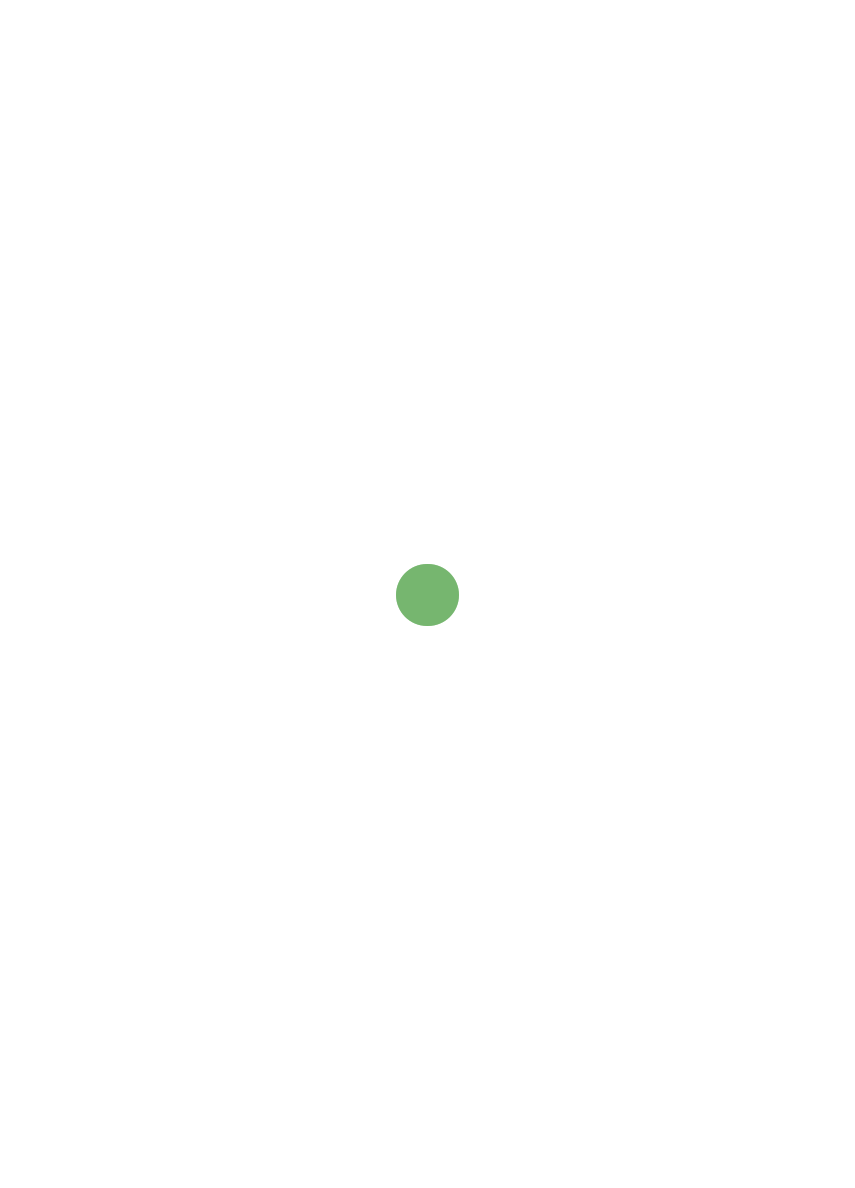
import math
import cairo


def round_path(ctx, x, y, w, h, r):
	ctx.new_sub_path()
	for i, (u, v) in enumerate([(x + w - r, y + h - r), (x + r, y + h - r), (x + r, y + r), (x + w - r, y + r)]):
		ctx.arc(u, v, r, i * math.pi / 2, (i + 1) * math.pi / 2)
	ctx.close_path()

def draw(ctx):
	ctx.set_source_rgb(1, 1, 1)
	ctx.paint()
	ctx.set_source_rgb(0.616, 0.796, 0.596)
	round_path(ctx, 396, 564, 63, 62, 31)
	ctx.fill()
	ctx.set_source_rgba(0.361, 0.659, 0.329, 0.6)
	round_path(ctx, 396, 564, 63, 62, 31)
	ctx.fill()


surface = cairo.ImageSurface(cairo.FORMAT_RGB24, 855, 1188)
ctx = cairo.Context(surface)
options = cairo.FontOptions()
options.set_hint_metrics(cairo.HINT_METRICS_OFF)
options.set_hint_style(cairo.HINT_STYLE_NONE)
ctx.set_font_options(options)
ctx.set_miter_limit(4)
draw(ctx)
surface.write_to_png('image.png')
